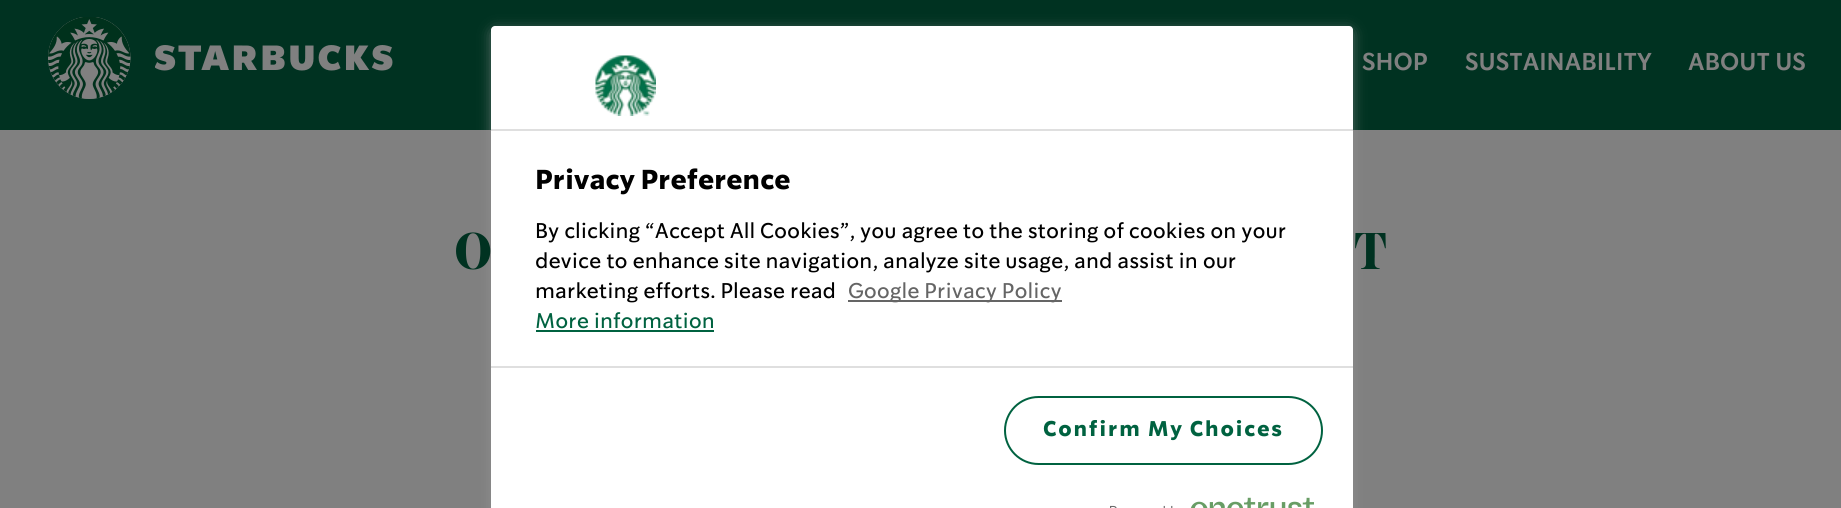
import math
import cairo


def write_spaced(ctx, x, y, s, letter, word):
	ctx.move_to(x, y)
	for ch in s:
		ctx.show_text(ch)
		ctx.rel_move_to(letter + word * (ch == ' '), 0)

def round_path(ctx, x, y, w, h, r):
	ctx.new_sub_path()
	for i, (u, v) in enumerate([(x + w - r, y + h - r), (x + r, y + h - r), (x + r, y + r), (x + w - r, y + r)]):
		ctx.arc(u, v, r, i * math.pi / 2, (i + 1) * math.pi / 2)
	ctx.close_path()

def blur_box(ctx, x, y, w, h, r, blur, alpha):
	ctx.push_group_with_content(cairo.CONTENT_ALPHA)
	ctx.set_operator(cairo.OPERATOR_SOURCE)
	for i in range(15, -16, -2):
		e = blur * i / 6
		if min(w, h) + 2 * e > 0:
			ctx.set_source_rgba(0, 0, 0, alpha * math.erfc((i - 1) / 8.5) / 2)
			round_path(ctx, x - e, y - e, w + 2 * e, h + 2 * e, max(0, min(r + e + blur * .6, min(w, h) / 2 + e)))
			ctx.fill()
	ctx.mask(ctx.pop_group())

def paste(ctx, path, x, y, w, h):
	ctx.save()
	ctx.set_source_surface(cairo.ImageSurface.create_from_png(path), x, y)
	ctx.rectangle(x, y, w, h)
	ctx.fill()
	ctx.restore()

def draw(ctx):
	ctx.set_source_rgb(0.502, 0.502, 0.502)
	ctx.paint()
	ctx.set_source_rgb(0, 0.196, 0.129)
	ctx.rectangle(0, 0, 1841, 130)
	ctx.fill()
	paste(ctx, 'media/1.png', 48, 17, 83, 82)
	paste(ctx, 'media/2.png', 155, 45, 238, 26)
	ctx.select_font_face('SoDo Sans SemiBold')
	ctx.set_font_size(24)
	ctx.set_source_rgb(0.502, 0.502, 0.502)
	for x, y, s in [
		(1362, 70, 'SHOP'),
		(1465, 70, 'SUSTAINABILITY'),
		(1688, 70, 'ABOUT US'),
	]:
		ctx.move_to(x, y)
		ctx.show_text(s)
	ctx.set_source_rgb(0.6, 0.6, 0.6)
	blur_box(ctx, 495, 33, 854, 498, 0, 7.5, 1)
	ctx.set_source_rgb(1, 1, 1)
	round_path(ctx, 491, 26, 862, 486, 4)
	ctx.fill()
	ctx.set_source_rgb(0.875, 0.875, 0.875)
	ctx.rectangle(491, 129, 862, 2)
	ctx.fill()
	paste(ctx, 'media/3.png', 595, 55, 61, 61)
	ctx.select_font_face('SoDo Sans', cairo.FONT_SLANT_NORMAL, cairo.FONT_WEIGHT_BOLD)
	ctx.set_font_size(27)
	ctx.set_source_rgb(0, 0, 0)
	ctx.move_to(535, 189)
	ctx.show_text('Privacy Preference')
	ctx.select_font_face('SoDo Sans')
	ctx.set_font_size(21)
	for x, y, s in [
		(535, 238, 'By clicking “Accept All Cookies”, you agree to the storing of cookies on your'),
		(535, 268, 'device to enhance site navigation, analyze site usage, and assist in our'),
		(535, 298, 'marketing efforts. Please read'),
	]:
		ctx.move_to(x, y)
		ctx.show_text(s)
	ctx.set_source_rgb(0.396, 0.396, 0.396)
	ctx.rectangle(848, 300, 214, 2)
	ctx.fill()
	ctx.move_to(848, 298)
	ctx.show_text('Google Privacy Policy')
	ctx.set_source_rgb(0, 0.384, 0.251)
	ctx.move_to(535, 328)
	ctx.show_text('More information')
	ctx.rectangle(536, 330, 178, 2)
	ctx.fill()
	ctx.set_source_rgb(0.875, 0.875, 0.875)
	ctx.rectangle(491, 366, 862, 2)
	ctx.fill()
	round_path(ctx, 1005, 397, 317, 67, 33.5)
	ctx.set_source_rgb(0, 0.384, 0.251)
	ctx.stroke()
	ctx.select_font_face('SoDo Sans', cairo.FONT_SLANT_NORMAL, cairo.FONT_WEIGHT_BOLD)
	write_spaced(ctx, 1043, 436, 'Confirm My Choices', 1.7, 0)
	paste(ctx, 'media/4.png', 1110, 497, 204, 11)
	ctx.select_font_face('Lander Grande', cairo.FONT_SLANT_NORMAL, cairo.FONT_WEIGHT_BOLD)
	ctx.set_font_size(48)
	ctx.set_source_rgb(0, 0.196, 0.129)
	ctx.move_to(454, 269)
	ctx.show_text('O')
	ctx.move_to(1353, 269)
	ctx.show_text('T')


surface = cairo.ImageSurface(cairo.FORMAT_RGB24, 1841, 508)
ctx = cairo.Context(surface)
options = cairo.FontOptions()
options.set_hint_metrics(cairo.HINT_METRICS_OFF)
options.set_hint_style(cairo.HINT_STYLE_NONE)
ctx.set_font_options(options)
ctx.set_miter_limit(4)
draw(ctx)
surface.write_to_png('image.png')
